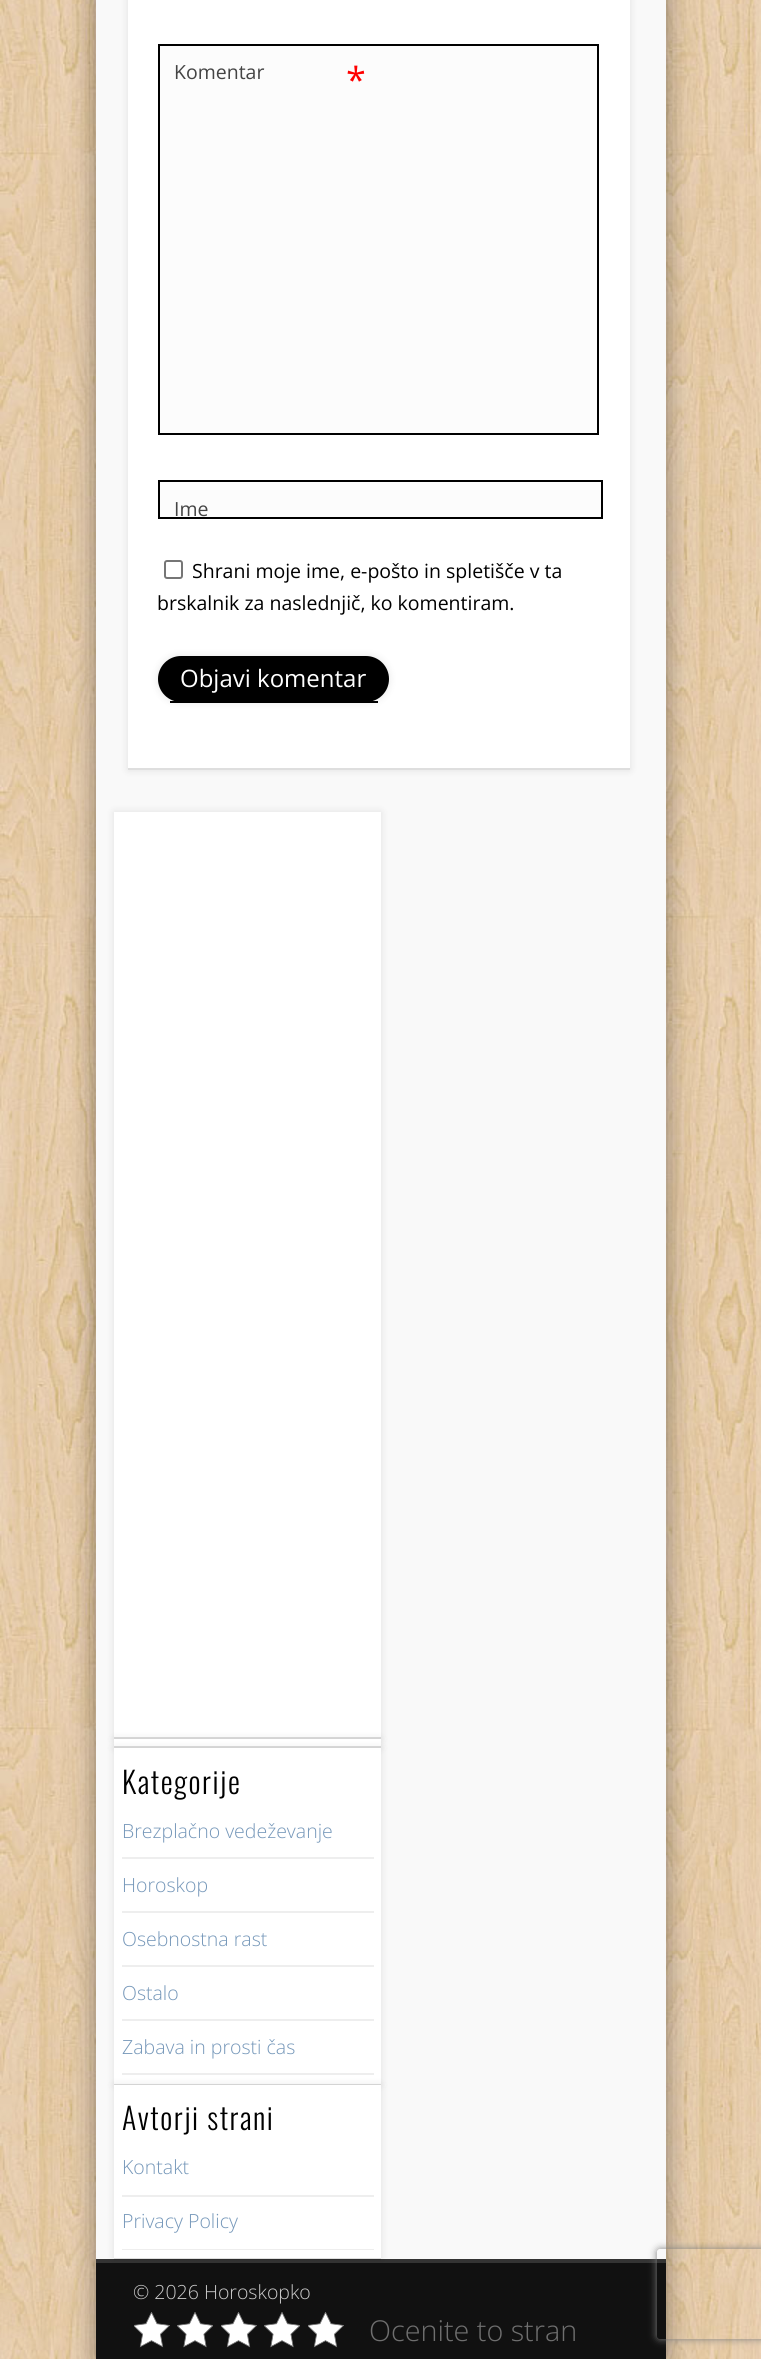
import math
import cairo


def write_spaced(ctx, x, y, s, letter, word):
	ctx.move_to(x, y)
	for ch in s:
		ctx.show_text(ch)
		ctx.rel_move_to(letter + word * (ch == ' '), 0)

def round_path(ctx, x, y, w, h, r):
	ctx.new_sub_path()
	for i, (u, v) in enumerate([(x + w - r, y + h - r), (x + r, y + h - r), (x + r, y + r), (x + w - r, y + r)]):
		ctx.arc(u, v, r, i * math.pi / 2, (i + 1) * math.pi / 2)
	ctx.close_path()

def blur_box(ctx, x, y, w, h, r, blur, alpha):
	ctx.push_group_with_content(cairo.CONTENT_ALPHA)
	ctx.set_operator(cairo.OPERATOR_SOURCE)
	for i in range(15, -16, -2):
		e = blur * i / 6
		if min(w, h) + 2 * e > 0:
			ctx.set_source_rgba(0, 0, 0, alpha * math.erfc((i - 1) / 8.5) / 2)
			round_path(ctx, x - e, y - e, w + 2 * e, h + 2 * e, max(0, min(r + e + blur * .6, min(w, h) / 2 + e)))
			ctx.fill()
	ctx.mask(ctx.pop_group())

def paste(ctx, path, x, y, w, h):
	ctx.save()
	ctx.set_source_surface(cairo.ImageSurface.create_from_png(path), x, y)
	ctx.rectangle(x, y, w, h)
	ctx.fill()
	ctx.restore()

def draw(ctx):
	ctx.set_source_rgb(1, 1, 1)
	ctx.paint()
	paste(ctx, 'media/1.png', 0, 0, 761, 2359)
	ctx.set_source_rgb(0, 0, 0)
	blur_box(ctx, 96, -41, 570, 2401, 0, 13.5, 0.4)
	ctx.set_source_rgb(0.973, 0.973, 0.973)
	ctx.rectangle(96, 0, 570, 2259)
	ctx.fill()
	ctx.set_source_rgb(0, 0, 0)
	blur_box(ctx, 128, -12, 502, 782, 0, 4, 0.1)
	ctx.set_source_rgb(1, 1, 1)
	ctx.rectangle(128, 0, 502, 768)
	ctx.fill()
	ctx.set_source_rgb(0.871, 0.871, 0.871)
	ctx.rectangle(128, 768, 502, 2)
	ctx.fill()
	ctx.set_source_rgb(0.988, 0.988, 0.988)
	ctx.rectangle(159, 45, 439, 389)
	ctx.fill_preserve()
	ctx.set_source_rgb(0, 0, 0)
	ctx.stroke()
	ctx.select_font_face('Open Sans')
	ctx.set_font_size(19.5)
	ctx.set_source_rgb(0.267, 0.267, 0.267)
	ctx.move_to(174, 79)
	ctx.show_text('Komentar')
	ctx.set_font_size(36)
	ctx.set_source_rgb(1, 0, 0)
	ctx.move_to(346, 93)
	ctx.show_text('*')
	ctx.set_source_rgb(0.988, 0.988, 0.988)
	ctx.rectangle(159, 481, 443, 37)
	ctx.fill_preserve()
	ctx.set_source_rgb(0, 0, 0)
	ctx.stroke()
	ctx.set_font_size(19.5)
	ctx.set_source_rgb(0.267, 0.267, 0.267)
	ctx.move_to(174, 516)
	ctx.show_text('Ime')
	round_path(ctx, 165, 561, 17, 17, 2)
	ctx.set_source_rgb(0.463, 0.463, 0.463)
	ctx.stroke()
	ctx.set_source_rgb(0, 0, 0)
	ctx.move_to(192, 578)
	ctx.show_text('Shrani moje ime, e-pošto in spletišče v ta')
	ctx.move_to(157, 610)
	ctx.show_text('brskalnik za naslednjič, ko komentiram.')
	ctx.set_source_rgb(0, 0, 0)
	blur_box(ctx, 158, 656, 231, 46, 23, 4, 0.1)
	ctx.set_source_rgb(0, 0, 0)
	round_path(ctx, 158, 656, 231, 46, 23)
	ctx.fill()
	ctx.rectangle(170, 701, 208, 2)
	ctx.fill()
	ctx.set_font_size(24)
	ctx.set_source_rgb(1, 1, 1)
	ctx.move_to(180, 687)
	ctx.show_text('Objavi komentar')
	ctx.set_source_rgb(0, 0, 0)
	blur_box(ctx, 114, 812, 267, 927, 0, 4, 0.1)
	ctx.set_source_rgb(1, 1, 1)
	ctx.rectangle(114, 812, 267, 925)
	ctx.fill()
	ctx.set_source_rgb(0.871, 0.871, 0.871)
	ctx.rectangle(114, 1737, 267, 2)
	ctx.fill()
	ctx.set_source_rgb(0, 0, 0)
	blur_box(ctx, 114, 1739, 267, 9, 0, 4, 0.1)
	ctx.set_source_rgb(1, 1, 1)
	ctx.rectangle(114, 1739, 267, 7)
	ctx.fill()
	ctx.set_source_rgb(0.871, 0.871, 0.871)
	ctx.rectangle(114, 1746, 267, 2)
	ctx.fill()
	ctx.set_source_rgb(0, 0, 0)
	blur_box(ctx, 114, 1748, 267, 337, 0, 4, 0.1)
	ctx.set_source_rgb(1, 1, 1)
	ctx.rectangle(114, 1748, 267, 337)
	ctx.fill()
	ctx.set_source_rgba(0, 0, 0, 0.13)
	ctx.rectangle(114, 2084, 267, 1)
	ctx.fill()
	ctx.select_font_face('Oswald Light')
	ctx.set_font_size(30)
	ctx.set_source_rgb(0, 0, 0)
	write_spaced(ctx, 122, 1794, 'Kategorije', 1.5, 0)
	ctx.set_source_rgb(0.933, 0.933, 0.933)
	ctx.rectangle(122, 1857, 252, 2)
	ctx.fill()
	ctx.select_font_face('Open Sans Light')
	ctx.set_font_size(19.5)
	ctx.set_source_rgb(0.459, 0.592, 0.725)
	ctx.move_to(122, 1838)
	ctx.show_text('Brezplačno vedeževanje')
	ctx.set_source_rgb(0.933, 0.933, 0.933)
	ctx.rectangle(122, 1911, 252, 2)
	ctx.fill()
	ctx.set_source_rgb(0.459, 0.592, 0.725)
	ctx.move_to(122, 1892)
	ctx.show_text('Horoskop')
	ctx.set_source_rgb(0.933, 0.933, 0.933)
	ctx.rectangle(122, 1965, 252, 2)
	ctx.fill()
	ctx.set_source_rgb(0.459, 0.592, 0.725)
	ctx.move_to(122, 1946)
	ctx.show_text('Osebnostna rast')
	ctx.set_source_rgb(0.933, 0.933, 0.933)
	ctx.rectangle(122, 2019, 252, 2)
	ctx.fill()
	ctx.set_source_rgb(0.459, 0.592, 0.725)
	ctx.move_to(122, 2000)
	ctx.show_text('Ostalo')
	ctx.set_source_rgb(0.204, 0.204, 0.204)
	ctx.rectangle(96, 2259, 570, 4)
	ctx.fill()
	ctx.set_source_rgb(0.067, 0.067, 0.067)
	ctx.rectangle(96, 2263, 570, 96)
	ctx.fill()
	ctx.set_source_rgb(0, 0, 0)
	blur_box(ctx, 114, 2085, 267, 174, 0, 4, 0.1)
	ctx.set_source_rgb(0.933, 0.933, 0.933)
	ctx.rectangle(122, 2073, 252, 2)
	ctx.fill()
	ctx.set_source_rgb(0.459, 0.592, 0.725)
	ctx.move_to(122, 2054)
	ctx.show_text('Zabava in prosti čas')
	ctx.set_source_rgb(1, 1, 1)
	ctx.rectangle(114, 2085, 267, 174)
	ctx.fill()
	ctx.set_source_rgba(0, 0, 0, 0.13)
	ctx.rectangle(114, 2258, 267, 2)
	ctx.fill()
	ctx.select_font_face('Oswald Light')
	ctx.set_font_size(30)
	ctx.set_source_rgb(0, 0, 0)
	write_spaced(ctx, 122, 2130, 'Avtorji strani', 1.5, 0)
	ctx.set_source_rgb(0.933, 0.933, 0.933)
	ctx.rectangle(122, 2195, 252, 2)
	ctx.fill()
	ctx.select_font_face('Open Sans Light')
	ctx.set_font_size(19.5)
	ctx.set_source_rgb(0.459, 0.592, 0.725)
	ctx.move_to(122, 2174)
	ctx.show_text('Kontakt')
	ctx.set_source_rgb(0.933, 0.933, 0.933)
	ctx.rectangle(122, 2249, 252, 1)
	ctx.fill()
	ctx.set_source_rgb(0.459, 0.592, 0.725)
	ctx.move_to(122, 2228)
	ctx.show_text('Privacy Policy')
	ctx.set_source_rgb(0.8, 0.8, 0.8)
	ctx.move_to(133, 2299)
	ctx.show_text('© 2026 Horoskopko')
	paste(ctx, 'media/2.png', 134, 2312, 36, 36)
	paste(ctx, 'media/3.png', 177, 2312, 36, 36)
	paste(ctx, 'media/2.png', 221, 2312, 36, 36)
	paste(ctx, 'media/3.png', 264, 2312, 36, 36)
	paste(ctx, 'media/2.png', 308, 2312, 36, 36)
	ctx.set_font_size(28.75)
	ctx.set_source_rgb(0.435, 0.435, 0.435)
	ctx.move_to(369, 2341)
	ctx.show_text('Ocenite to stran')
	ctx.save()
	ctx.set_fill_rule(cairo.FILL_RULE_EVEN_ODD)
	ctx.new_path()
	ctx.move_to(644, 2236)
	ctx.line_to(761, 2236)
	ctx.line_to(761, 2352)
	ctx.line_to(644, 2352)
	ctx.close_path()
	ctx.move_to(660, 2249)
	ctx.line_to(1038, 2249)
	ctx.curve_to(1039.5, 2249, 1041, 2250.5, 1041, 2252)
	ctx.line_to(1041, 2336)
	ctx.curve_to(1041, 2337.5, 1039.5, 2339, 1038, 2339)
	ctx.line_to(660, 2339)
	ctx.curve_to(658.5, 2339, 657, 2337.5, 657, 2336)
	ctx.line_to(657, 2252)
	ctx.curve_to(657, 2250.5, 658.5, 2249, 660, 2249)
	ctx.close_path()
	ctx.clip()
	ctx.set_source_rgb(0.502, 0.502, 0.502)
	blur_box(ctx, 657, 2249, 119, 90, 3, 4, 1)
	ctx.restore()


surface = cairo.ImageSurface(cairo.FORMAT_RGB24, 761, 2359)
ctx = cairo.Context(surface)
options = cairo.FontOptions()
options.set_hint_metrics(cairo.HINT_METRICS_OFF)
options.set_hint_style(cairo.HINT_STYLE_NONE)
ctx.set_font_options(options)
ctx.set_miter_limit(4)
draw(ctx)
surface.write_to_png('image.png')
